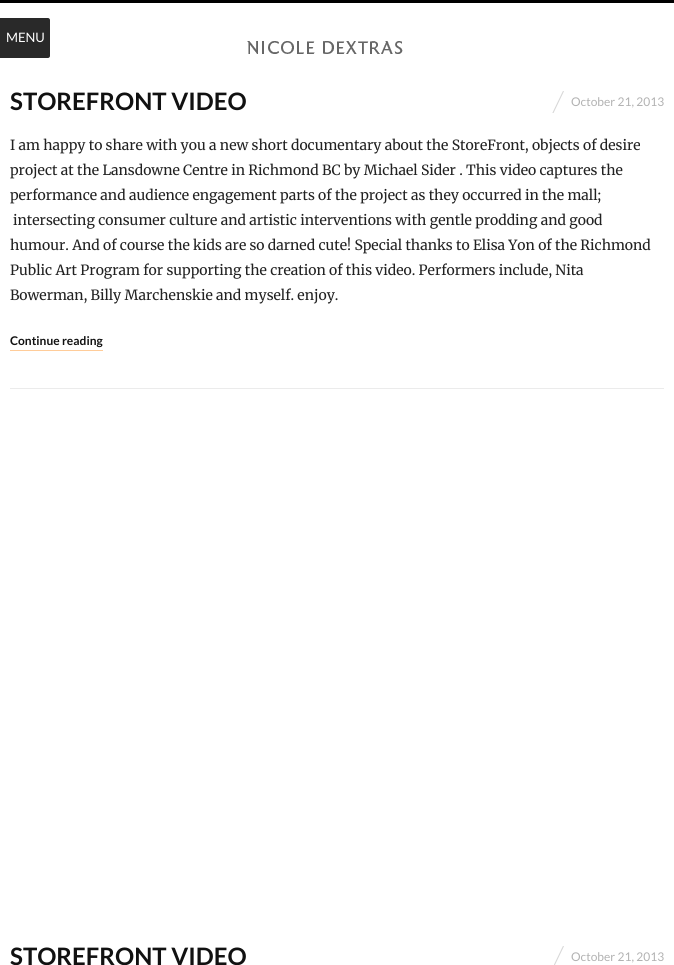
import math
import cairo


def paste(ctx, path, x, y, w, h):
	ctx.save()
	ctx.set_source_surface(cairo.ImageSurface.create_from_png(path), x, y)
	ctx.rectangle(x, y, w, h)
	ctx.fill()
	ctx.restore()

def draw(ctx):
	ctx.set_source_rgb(1, 1, 1)
	ctx.paint()
	ctx.set_source_rgb(0.161, 0.161, 0.161)
	ctx.new_path()
	ctx.move_to(0, 18)
	ctx.line_to(48, 18)
	ctx.curve_to(49, 18, 50, 19, 50, 20)
	ctx.line_to(50, 56)
	ctx.curve_to(50, 57, 49, 58, 48, 58)
	ctx.line_to(0, 58)
	ctx.close_path()
	ctx.fill()
	ctx.select_font_face('Lato')
	ctx.set_font_size(13)
	ctx.set_source_rgb(1, 1, 1)
	ctx.move_to(6, 42)
	ctx.show_text('MENU')
	ctx.set_source_rgb(0, 0, 0)
	ctx.rectangle(0, 0, 674, 3)
	ctx.fill()
	paste(ctx, 'media/1.png', 247, 41, 156, 13)
	ctx.select_font_face('Lato', cairo.FONT_SLANT_NORMAL, cairo.FONT_WEIGHT_BOLD)
	ctx.set_font_size(24)
	ctx.set_source_rgb(0.067, 0.067, 0.067)
	ctx.move_to(10, 110)
	ctx.show_text('STOREFRONT VIDEO')
	paste(ctx, 'media/2.png', 552, 91, 12, 22)
	ctx.select_font_face('Lato')
	ctx.set_font_size(12)
	ctx.set_source_rgb(0.698, 0.698, 0.698)
	ctx.move_to(571, 106)
	ctx.show_text('October 21, 2013')
	ctx.select_font_face('Merriweather Light')
	ctx.set_font_size(14)
	ctx.set_source_rgb(0.133, 0.133, 0.133)
	for x, y, s in [
		(10, 150, 'I am happy to share with you a new short documentary about the StoreFront, objects of desire'),
		(10, 175, 'project at the Lansdowne Centre in Richmond BC by Michael Sider . This video captures the'),
		(10, 200, 'performance and audience engagement parts of the project as they occurred in the mall;'),
		(13, 225, 'intersecting consumer culture and artistic interventions with gentle prodding and good'),
		(10, 250, 'humour. And of course the kids are so darned cute! Special thanks to Elisa Yon of the Richmond'),
		(10, 275, 'Public Art Program for supporting the creation of this video. Performers include, Nita'),
		(10, 300, 'Bowerman, Billy Marchenskie and myself. enjoy.'),
	]:
		ctx.move_to(x, y)
		ctx.show_text(s)
	ctx.select_font_face('Lato', cairo.FONT_SLANT_NORMAL, cairo.FONT_WEIGHT_BOLD)
	ctx.set_font_size(12)
	ctx.set_source_rgb(0.067, 0.067, 0.067)
	ctx.move_to(10, 345)
	ctx.show_text('Continue reading')
	ctx.set_source_rgb(1, 0.8, 0.6)
	ctx.rectangle(10, 350, 93, 1)
	ctx.fill()
	ctx.set_source_rgb(0.918, 0.918, 0.918)
	ctx.rectangle(10, 388, 654, 1)
	ctx.fill()
	ctx.set_font_size(24)
	ctx.set_source_rgb(0.067, 0.067, 0.067)
	ctx.move_to(10, 965)
	ctx.show_text('STOREFRONT VIDEO')
	paste(ctx, 'media/3.png', 554, 946, 10, 19)
	ctx.select_font_face('Lato')
	ctx.set_font_size(12)
	ctx.set_source_rgb(0.698, 0.698, 0.698)
	ctx.move_to(571, 961)
	ctx.show_text('October 21, 2013')


surface = cairo.ImageSurface(cairo.FORMAT_RGB24, 674, 965)
ctx = cairo.Context(surface)
options = cairo.FontOptions()
options.set_hint_metrics(cairo.HINT_METRICS_OFF)
options.set_hint_style(cairo.HINT_STYLE_NONE)
ctx.set_font_options(options)
ctx.set_miter_limit(4)
draw(ctx)
surface.write_to_png('image.png')
